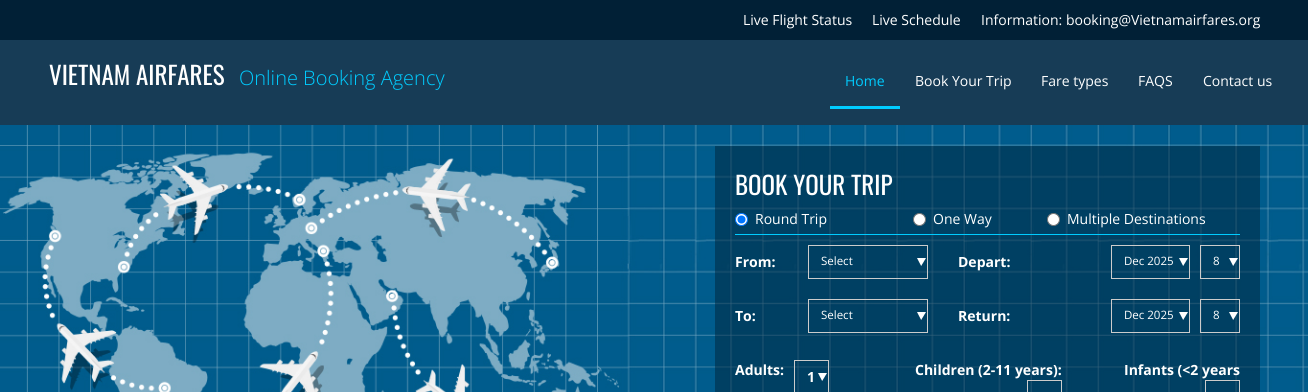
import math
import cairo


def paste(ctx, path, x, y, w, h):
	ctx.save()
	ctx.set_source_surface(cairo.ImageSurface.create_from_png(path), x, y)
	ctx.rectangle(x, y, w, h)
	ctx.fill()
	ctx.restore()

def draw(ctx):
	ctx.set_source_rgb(1, 1, 1)
	ctx.paint()
	ctx.set_source_rgb(0.004, 0.125, 0.212)
	ctx.rectangle(0, 0, 1308, 40)
	ctx.fill()
	ctx.select_font_face('Open Sans')
	ctx.set_font_size(14)
	ctx.set_source_rgb(1, 1, 1)
	for x, y, s in [
		(743, 25, 'Live Flight Status'),
		(872, 25, 'Live Schedule'),
		(981, 25, 'Information: booking@Vietnamairfares.org'),
	]:
		ctx.move_to(x, y)
		ctx.show_text(s)
	ctx.set_source_rgb(0.09, 0.235, 0.337)
	ctx.rectangle(0, 40, 1308, 85)
	ctx.fill()
	ctx.select_font_face('Oswald')
	ctx.set_font_size(25)
	ctx.set_source_rgb(1, 1, 1)
	ctx.move_to(49, 85)
	ctx.show_text('VIETNAM AIRFARES')
	ctx.select_font_face('Open Sans Light')
	ctx.set_font_size(20)
	ctx.set_source_rgb(0, 0.8, 1)
	ctx.move_to(239, 85)
	ctx.show_text('Online Booking Agency')
	ctx.rectangle(830, 106, 70, 3)
	ctx.fill()
	ctx.select_font_face('Open Sans')
	ctx.set_font_size(14)
	ctx.move_to(845, 86)
	ctx.show_text('Home')
	ctx.set_source_rgb(1, 1, 1)
	for x, y, s in [
		(915, 86, 'Book Your Trip'),
		(1041, 86, 'Fare types'),
		(1138, 86, 'FAQS'),
		(1203, 86, 'Contact us'),
	]:
		ctx.move_to(x, y)
		ctx.show_text(s)
	paste(ctx, 'media/1.png', 0, 125, 1308, 267)
	ctx.set_source_rgba(0.004, 0.141, 0.227, 0.5)
	ctx.rectangle(715, 146, 545, 246)
	ctx.fill()
	ctx.select_font_face('Oswald')
	ctx.set_font_size(25)
	ctx.set_source_rgb(1, 1, 1)
	ctx.move_to(735, 195)
	ctx.show_text('BOOK YOUR TRIP')
	ctx.new_path()
	ctx.arc(741.5, 219.5, 6, 0, 2 * math.pi)
	ctx.fill_preserve()
	ctx.set_source_rgb(0, 0.459, 1)
	ctx.set_line_width(1)
	ctx.stroke()
	ctx.arc(741.5, 219.5, 4, 0, 2 * math.pi)
	ctx.fill()
	ctx.select_font_face('Open Sans')
	ctx.set_font_size(14)
	ctx.set_source_rgb(1, 1, 1)
	ctx.move_to(755, 224)
	ctx.show_text('Round Trip')
	ctx.new_path()
	ctx.arc(919.5, 219.5, 6, 0, 2 * math.pi)
	ctx.fill_preserve()
	ctx.set_source_rgb(0.463, 0.463, 0.463)
	ctx.stroke()
	ctx.set_source_rgb(1, 1, 1)
	ctx.move_to(933, 224)
	ctx.show_text('One Way')
	ctx.new_path()
	ctx.arc(1053.5, 219.5, 6, 0, 2 * math.pi)
	ctx.fill_preserve()
	ctx.set_source_rgb(0.463, 0.463, 0.463)
	ctx.stroke()
	ctx.set_source_rgb(1, 1, 1)
	ctx.move_to(1067, 224)
	ctx.show_text('Multiple Destinations')
	ctx.set_source_rgb(0, 0.8, 1)
	ctx.rectangle(735, 234, 505, 1)
	ctx.fill()
	ctx.select_font_face('Open Sans', cairo.FONT_SLANT_NORMAL, cairo.FONT_WEIGHT_BOLD)
	ctx.set_source_rgb(1, 1, 1)
	ctx.move_to(735, 267)
	ctx.show_text('From:')
	paste(ctx, 'media/2.png', 917, 258, 9, 8)
	ctx.set_source_rgba(0, 0, 0, 0.07)
	ctx.rectangle(809, 246, 118, 1)
	ctx.fill()
	ctx.rectangle(808.5, 245.5, 119, 33)
	ctx.set_source_rgb(0.8, 0.8, 0.8)
	ctx.stroke()
	ctx.select_font_face('Open Sans')
	ctx.set_font_size(11.5)
	ctx.set_source_rgb(1, 1, 1)
	ctx.move_to(821, 265)
	ctx.show_text('Select')
	ctx.select_font_face('Open Sans', cairo.FONT_SLANT_NORMAL, cairo.FONT_WEIGHT_BOLD)
	ctx.set_font_size(14)
	ctx.move_to(958, 267)
	ctx.show_text('Depart:')
	paste(ctx, 'media/3.png', 1179, 258, 9, 8)
	ctx.set_source_rgba(0, 0, 0, 0.07)
	ctx.rectangle(1112, 246, 77, 1)
	ctx.fill()
	ctx.rectangle(1111.5, 245.5, 78, 33)
	ctx.set_source_rgb(0.8, 0.8, 0.8)
	ctx.stroke()
	ctx.select_font_face('Open Sans')
	ctx.set_font_size(11.5)
	ctx.set_source_rgb(1, 1, 1)
	ctx.move_to(1124, 265)
	ctx.show_text('Dec 2025')
	paste(ctx, 'media/4.png', 1229, 258, 9, 8)
	ctx.set_source_rgba(0, 0, 0, 0.07)
	ctx.rectangle(1201, 246, 38, 1)
	ctx.fill()
	ctx.rectangle(1200.5, 245.5, 39, 33)
	ctx.set_source_rgb(0.8, 0.8, 0.8)
	ctx.stroke()
	ctx.set_source_rgb(1, 1, 1)
	ctx.move_to(1213, 265)
	ctx.show_text('8')
	ctx.select_font_face('Open Sans', cairo.FONT_SLANT_NORMAL, cairo.FONT_WEIGHT_BOLD)
	ctx.set_font_size(14)
	ctx.move_to(735, 321)
	ctx.show_text('To:')
	paste(ctx, 'media/5.png', 917, 312, 9, 8)
	ctx.set_source_rgba(0, 0, 0, 0.07)
	ctx.rectangle(809, 300, 118, 1)
	ctx.fill()
	ctx.rectangle(808.5, 299.5, 119, 33)
	ctx.set_source_rgb(0.8, 0.8, 0.8)
	ctx.stroke()
	ctx.select_font_face('Open Sans')
	ctx.set_font_size(11.5)
	ctx.set_source_rgb(1, 1, 1)
	ctx.move_to(821, 319)
	ctx.show_text('Select')
	ctx.select_font_face('Open Sans', cairo.FONT_SLANT_NORMAL, cairo.FONT_WEIGHT_BOLD)
	ctx.set_font_size(14)
	ctx.move_to(958, 321)
	ctx.show_text('Return:')
	paste(ctx, 'media/5.png', 1179, 312, 9, 8)
	ctx.set_source_rgba(0, 0, 0, 0.07)
	ctx.rectangle(1112, 300, 77, 1)
	ctx.fill()
	ctx.rectangle(1111.5, 299.5, 78, 33)
	ctx.set_source_rgb(0.8, 0.8, 0.8)
	ctx.stroke()
	ctx.select_font_face('Open Sans')
	ctx.set_font_size(11.5)
	ctx.set_source_rgb(1, 1, 1)
	ctx.move_to(1124, 319)
	ctx.show_text('Dec 2025')
	paste(ctx, 'media/6.png', 1229, 312, 9, 8)
	ctx.set_source_rgba(0, 0, 0, 0.07)
	ctx.rectangle(1201, 300, 38, 1)
	ctx.fill()
	ctx.rectangle(1200.5, 299.5, 39, 33)
	ctx.set_source_rgb(0.8, 0.8, 0.8)
	ctx.stroke()
	ctx.set_source_rgb(1, 1, 1)
	ctx.move_to(1213, 319)
	ctx.show_text('8')
	ctx.select_font_face('Open Sans', cairo.FONT_SLANT_NORMAL, cairo.FONT_WEIGHT_BOLD)
	ctx.set_font_size(14)
	ctx.move_to(735, 375)
	ctx.show_text('Adults:')
	paste(ctx, 'media/5.png', 818, 373, 9, 8)
	ctx.set_source_rgba(0, 0, 0, 0.07)
	ctx.rectangle(795, 361, 33, 1)
	ctx.fill()
	ctx.rectangle(794.5, 360.5, 34, 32)
	ctx.set_source_rgb(0.8, 0.8, 0.8)
	ctx.stroke()
	ctx.set_source_rgb(1, 1, 1)
	ctx.move_to(807, 382)
	ctx.show_text('1')
	ctx.move_to(915, 375)
	ctx.show_text('Children (2-11 years):')
	ctx.set_source_rgba(0, 0, 0, 0.07)
	ctx.rectangle(1028, 381, 33, 1)
	ctx.fill()
	ctx.rectangle(1027.5, 380.5, 34, 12)
	ctx.set_source_rgb(0.8, 0.8, 0.8)
	ctx.stroke()
	ctx.set_source_rgb(1, 1, 1)
	ctx.move_to(1124, 375)
	ctx.show_text('Infants (<2 years')
	ctx.set_source_rgba(0, 0, 0, 0.07)
	ctx.rectangle(1206, 381, 33, 1)
	ctx.fill()
	ctx.rectangle(1205.5, 380.5, 34, 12)
	ctx.set_source_rgb(0.8, 0.8, 0.8)
	ctx.stroke()


surface = cairo.ImageSurface(cairo.FORMAT_RGB24, 1308, 392)
ctx = cairo.Context(surface)
options = cairo.FontOptions()
options.set_hint_metrics(cairo.HINT_METRICS_OFF)
options.set_hint_style(cairo.HINT_STYLE_NONE)
ctx.set_font_options(options)
ctx.set_miter_limit(4)
draw(ctx)
surface.write_to_png('image.png')
